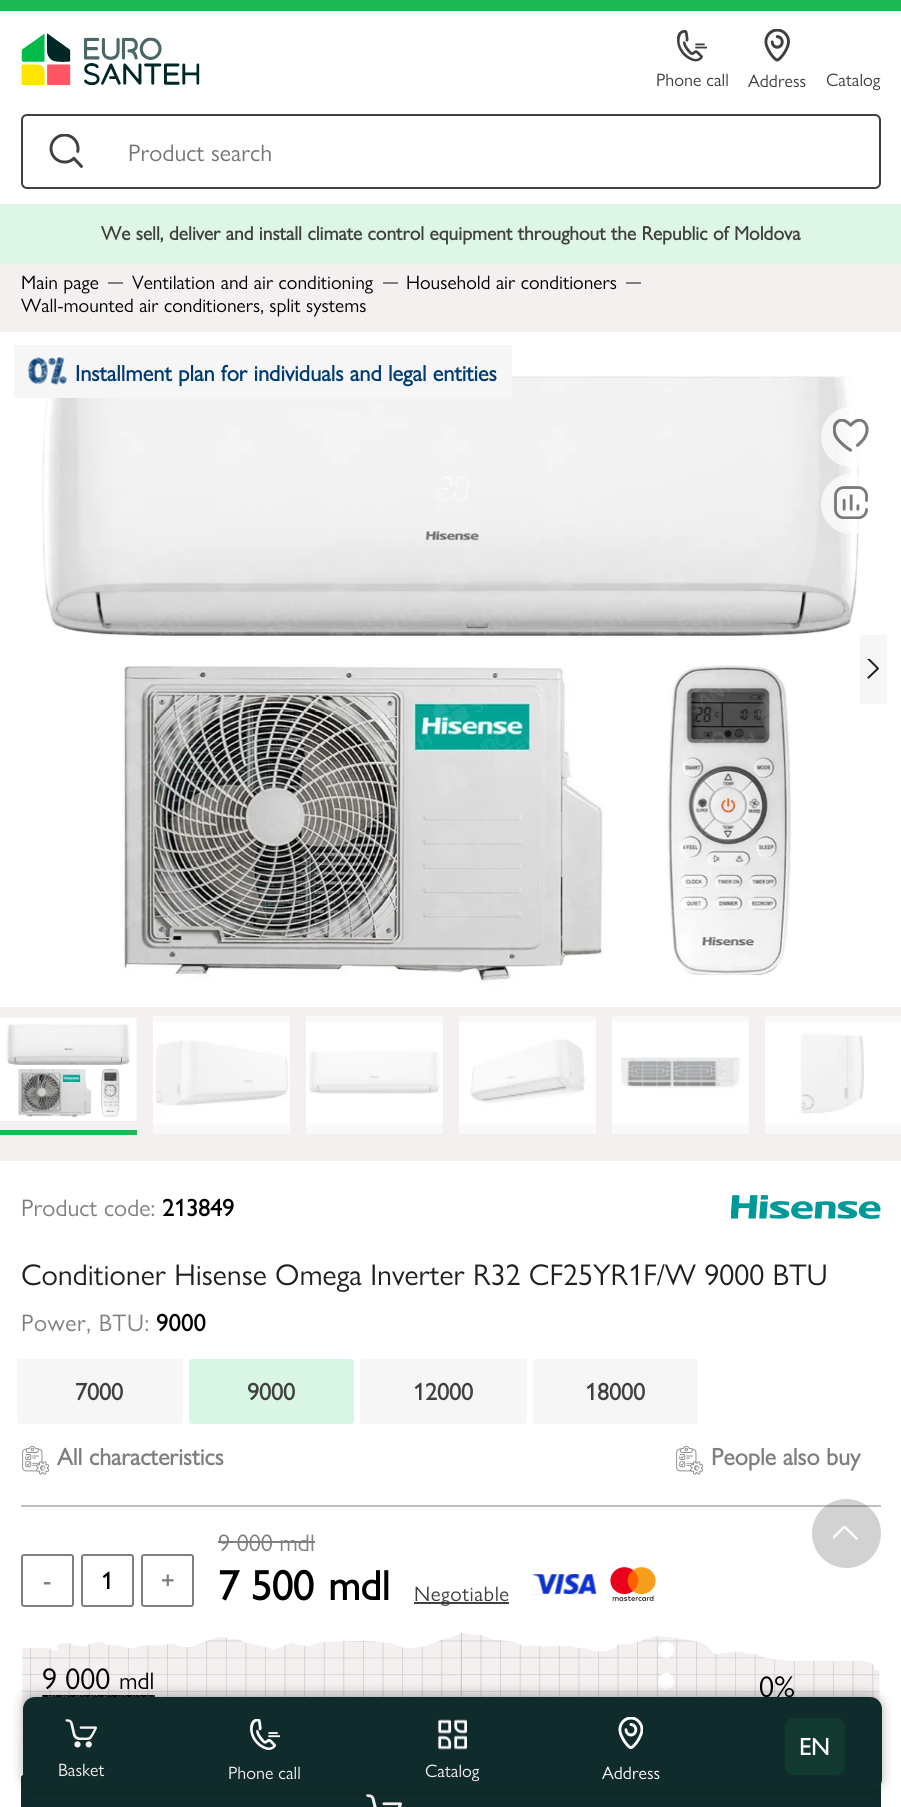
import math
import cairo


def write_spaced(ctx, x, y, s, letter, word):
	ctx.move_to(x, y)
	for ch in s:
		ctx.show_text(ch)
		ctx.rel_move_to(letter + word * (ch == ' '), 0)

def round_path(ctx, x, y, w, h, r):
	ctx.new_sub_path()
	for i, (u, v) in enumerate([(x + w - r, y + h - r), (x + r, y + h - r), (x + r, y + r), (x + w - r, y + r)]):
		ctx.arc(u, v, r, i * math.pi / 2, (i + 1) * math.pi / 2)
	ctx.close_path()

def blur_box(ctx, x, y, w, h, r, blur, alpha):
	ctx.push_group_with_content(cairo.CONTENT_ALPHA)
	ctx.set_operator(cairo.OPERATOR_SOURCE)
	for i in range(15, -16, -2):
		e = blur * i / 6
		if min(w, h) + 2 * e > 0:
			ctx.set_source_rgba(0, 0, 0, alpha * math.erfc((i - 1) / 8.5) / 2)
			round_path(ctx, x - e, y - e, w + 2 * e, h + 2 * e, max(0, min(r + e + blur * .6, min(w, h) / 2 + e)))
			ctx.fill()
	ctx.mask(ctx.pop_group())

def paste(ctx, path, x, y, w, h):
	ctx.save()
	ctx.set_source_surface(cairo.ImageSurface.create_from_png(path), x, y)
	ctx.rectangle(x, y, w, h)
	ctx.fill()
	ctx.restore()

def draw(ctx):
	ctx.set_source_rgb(1, 1, 1)
	ctx.paint()
	ctx.set_source_rgb(0.114, 0.725, 0.329)
	ctx.rectangle(0, 0, 901, 11)
	ctx.fill()
	paste(ctx, 'media/1.png', 21, 33, 179, 53)
	paste(ctx, 'media/2.png', 677, 30, 30, 32)
	ctx.select_font_face('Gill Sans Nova')
	ctx.set_font_size(18)
	ctx.set_source_rgb(0.251, 0.251, 0.251)
	ctx.move_to(656, 86)
	ctx.show_text('Phone call')
	paste(ctx, 'media/3.png', 764, 29, 26, 33)
	ctx.move_to(748, 87)
	ctx.show_text('Address')
	ctx.move_to(826, 86)
	ctx.show_text('Catalog')
	round_path(ctx, 22, 115, 858, 73, 5)
	ctx.stroke()
	paste(ctx, 'media/4.png', 49, 134, 34, 34)
	ctx.set_font_size(24)
	ctx.set_source_rgb(0.459, 0.459, 0.459)
	ctx.move_to(128, 161)
	ctx.show_text('Product search')
	ctx.set_source_rgb(0.867, 0.961, 0.898)
	ctx.rectangle(0, 204, 901, 60)
	ctx.fill()
	ctx.select_font_face('Gill Sans Nova', cairo.FONT_SLANT_NORMAL, cairo.FONT_WEIGHT_BOLD)
	ctx.set_font_size(19.5)
	ctx.set_source_rgb(0.251, 0.251, 0.251)
	ctx.move_to(101, 240)
	ctx.show_text('We sell, deliver and install climate control equipment throughout the Republic of Moldova')
	ctx.set_source_rgb(0.957, 0.941, 0.941)
	ctx.rectangle(0, 264, 901, 897)
	ctx.fill()
	ctx.set_source_rgb(0.98, 0.973, 0.973)
	ctx.rectangle(765, 1016, 136, 118)
	ctx.rectangle(612, 1016, 137, 118)
	ctx.rectangle(459, 1016, 137, 118)
	ctx.rectangle(306, 1016, 137, 118)
	ctx.rectangle(153, 1016, 137, 118)
	ctx.fill()
	ctx.select_font_face('Gill Sans Nova')
	ctx.set_source_rgb(0, 0, 0)
	ctx.move_to(21, 289)
	ctx.show_text('Main page')
	ctx.set_source_rgb(0.498, 0.498, 0.498)
	ctx.rectangle(108, 282, 15, 2)
	ctx.fill()
	ctx.set_source_rgb(0, 0, 0)
	ctx.move_to(132, 289)
	ctx.show_text('Ventilation and air conditioning')
	ctx.set_source_rgb(0.498, 0.498, 0.498)
	ctx.rectangle(383, 282, 15, 2)
	ctx.fill()
	ctx.set_source_rgb(0, 0, 0)
	ctx.move_to(406, 289)
	ctx.show_text('Household air conditioners')
	ctx.set_source_rgb(0.498, 0.498, 0.498)
	ctx.rectangle(626, 282, 15, 2)
	ctx.fill()
	ctx.set_source_rgb(0, 0, 0)
	ctx.move_to(21, 312)
	ctx.show_text('Wall-mounted air conditioners, split systems')
	paste(ctx, 'media/5.png', 0, 332, 901, 675)
	ctx.set_source_rgb(0.961, 0.961, 0.965)
	ctx.rectangle(860, 635, 27, 69)
	ctx.fill()
	ctx.save()
	ctx.rectangle(860, 659, 27, 22)
	ctx.clip()
	ctx.new_path()
	ctx.move_to(868.5, 677.5)
	ctx.line_to(878, 668.5)
	ctx.line_to(868.5, 659)
	ctx.set_source_rgb(0.125, 0.125, 0.125)
	ctx.set_line_cap(cairo.LINE_CAP_SQUARE)
	ctx.set_line_join(cairo.LINE_JOIN_ROUND)
	ctx.stroke()
	ctx.restore()
	ctx.rectangle(14, 345, 498, 53)
	ctx.fill()
	paste(ctx, 'media/6.png', 28, 357, 39, 28)
	ctx.select_font_face('Gill Sans Nova', cairo.FONT_SLANT_NORMAL, cairo.FONT_WEIGHT_BOLD)
	ctx.set_font_size(22.5)
	ctx.set_source_rgb(0, 0.235, 0.451)
	ctx.move_to(75, 381)
	ctx.show_text('Installment plan for individuals and legal entities')
	ctx.set_source_rgba(1, 1, 1, 0.7)
	ctx.new_path()
	ctx.arc(851, 437, 30, 0, 2 * math.pi)
	ctx.fill()
	paste(ctx, 'media/7.png', 833, 419, 36, 33)
	ctx.arc(851, 504, 30, 0, 2 * math.pi)
	ctx.fill()
	paste(ctx, 'media/8.png', 834, 486, 34, 33)
	ctx.set_source_rgb(0.114, 0.725, 0.329)
	ctx.rectangle(0, 1130, 137, 5)
	ctx.fill()
	paste(ctx, 'media/9.png', 0, 1017, 137, 104)
	paste(ctx, 'media/10.png', 153, 1022, 137, 102)
	paste(ctx, 'media/11.png', 306, 1022, 137, 102)
	paste(ctx, 'media/12.png', 459, 1022, 137, 102)
	paste(ctx, 'media/13.png', 612, 1022, 137, 102)
	paste(ctx, 'media/14.png', 765, 1022, 136, 102)
	ctx.set_source_rgb(0.749, 0.749, 0.749)
	ctx.rectangle(21, 1505, 860, 2)
	ctx.fill()
	ctx.select_font_face('Gill Sans Nova')
	ctx.set_font_size(24)
	ctx.set_source_rgb(0.498, 0.498, 0.498)
	ctx.move_to(21, 1216)
	ctx.show_text('Product code:')
	ctx.select_font_face('Gill Sans Nova', cairo.FONT_SLANT_NORMAL, cairo.FONT_WEIGHT_BOLD)
	ctx.set_source_rgb(0, 0, 0)
	ctx.move_to(162, 1216)
	ctx.show_text('213849')
	paste(ctx, 'media/15.png', 731, 1195, 150, 24)
	ctx.select_font_face('Gill Sans Nova')
	ctx.set_font_size(30)
	ctx.set_source_rgb(0.125, 0.125, 0.125)
	ctx.move_to(21, 1285)
	ctx.show_text('Conditioner Hisense Omega Inverter R32 CF25YR1F/W 9000 BTU')
	ctx.set_font_size(24)
	ctx.set_source_rgb(0.498, 0.498, 0.498)
	write_spaced(ctx, 21, 1331, 'Power, BTU:', 0.5, 0)
	ctx.select_font_face('Gill Sans Nova', cairo.FONT_SLANT_NORMAL, cairo.FONT_WEIGHT_BOLD)
	ctx.set_source_rgb(0, 0, 0)
	write_spaced(ctx, 156, 1331, '9000', 0.5, 0)
	ctx.set_source_rgb(0.961, 0.961, 0.965)
	round_path(ctx, 17, 1359, 166, 65, 3)
	ctx.fill()
	ctx.set_source_rgb(0.251, 0.251, 0.251)
	ctx.move_to(75, 1400)
	ctx.show_text('7000')
	ctx.set_source_rgb(0.851, 0.961, 0.894)
	round_path(ctx, 189, 1359, 165, 65, 3)
	ctx.fill()
	ctx.set_source_rgb(0.251, 0.251, 0.251)
	ctx.move_to(247, 1400)
	ctx.show_text('9000')
	ctx.set_source_rgb(0.961, 0.961, 0.965)
	round_path(ctx, 360, 1359, 167, 65, 3)
	ctx.fill()
	ctx.set_source_rgb(0.251, 0.251, 0.251)
	ctx.move_to(413, 1400)
	ctx.show_text('12000')
	ctx.set_source_rgb(0.961, 0.961, 0.965)
	round_path(ctx, 533, 1359, 165, 65, 3)
	ctx.fill()
	ctx.set_source_rgb(0.251, 0.251, 0.251)
	ctx.move_to(585, 1400)
	ctx.show_text('18000')
	paste(ctx, 'media/16.png', 22, 1446, 27, 29)
	ctx.set_source_rgb(0.498, 0.498, 0.498)
	ctx.move_to(57, 1465)
	ctx.show_text('All characteristics')
	paste(ctx, 'media/16.png', 676, 1446, 27, 29)
	ctx.move_to(711, 1465)
	ctx.show_text('People also buy')
	round_path(ctx, 22, 1555, 51, 51, 2)
	ctx.stroke()
	ctx.move_to(43, 1589)
	ctx.show_text('-')
	round_path(ctx, 82, 1555, 51, 51, 2)
	ctx.stroke()
	ctx.set_source_rgb(0, 0, 0)
	ctx.move_to(101, 1589)
	ctx.show_text('1')
	round_path(ctx, 142, 1555, 51, 51, 2)
	ctx.set_source_rgb(0.498, 0.498, 0.498)
	ctx.stroke()
	ctx.move_to(161, 1589)
	ctx.show_text('+')
	ctx.select_font_face('Gill Sans Nova')
	ctx.move_to(218, 1551)
	ctx.show_text('9 000 mdl')
	ctx.rectangle(218, 1541, 97, 2)
	ctx.fill()
	ctx.select_font_face('Gill Sans Nova', cairo.FONT_SLANT_NORMAL, cairo.FONT_WEIGHT_BOLD)
	ctx.set_font_size(42)
	ctx.set_source_rgb(0, 0, 0)
	ctx.move_to(218, 1600)
	ctx.show_text('7 500')
	ctx.move_to(328, 1600)
	ctx.show_text('mdl')
	paste(ctx, 'media/17.png', 533, 1574, 64, 21)
	paste(ctx, 'media/18.png', 610, 1567, 46, 34)
	ctx.set_source_rgb(0.251, 0.251, 0.251)
	ctx.rectangle(414, 1602, 95, 2)
	ctx.fill()
	ctx.select_font_face('Gill Sans Nova')
	ctx.set_font_size(21)
	write_spaced(ctx, 414, 1601, 'Negotiable', 0.5, 0)
	paste(ctx, 'media/19.png', 21, 1632, 859, 113)
	ctx.set_font_size(30)
	ctx.set_source_rgb(0, 0, 0)
	ctx.move_to(42, 1689)
	ctx.show_text('9 000')
	ctx.set_font_size(24)
	ctx.move_to(119, 1689)
	ctx.show_text('mdl')
	paste(ctx, 'media/20.png', 42, 1695, 113, 2)
	ctx.set_font_size(30)
	ctx.move_to(759, 1697)
	ctx.show_text('0%')
	ctx.set_source_rgb(0.063, 0.169, 0.169)
	ctx.new_path()
	ctx.move_to(24, 1775)
	ctx.line_to(878, 1775)
	ctx.curve_to(879.5, 1775, 881, 1776.5, 881, 1778)
	ctx.line_to(881, 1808)
	ctx.line_to(21, 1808)
	ctx.line_to(21, 1778)
	ctx.curve_to(21, 1776.5, 22.5, 1775, 24, 1775)
	ctx.close_path()
	ctx.fill()
	round_path(ctx, 22, 1776, 858, 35, 2)
	ctx.stroke()
	paste(ctx, 'media/21.png', 366, 1794, 36, 13)
	ctx.set_source_rgba(0.125, 0.125, 0.125, 0.2)
	ctx.arc(846.5, 1533.5, 34.5, 0, 2 * math.pi)
	ctx.fill()
	ctx.save()
	ctx.rectangle(833, 1526, 28, 16)
	ctx.clip()
	ctx.new_path()
	ctx.move_to(856.5, 1538.5)
	ctx.line_to(844.5, 1526.5)
	ctx.line_to(832.5, 1538.5)
	ctx.set_source_rgb(1, 1, 1)
	ctx.set_line_width(2.2)
	ctx.set_line_cap(cairo.LINE_CAP_SQUARE)
	ctx.set_line_join(cairo.LINE_JOIN_ROUND)
	ctx.stroke()
	ctx.restore()
	ctx.set_source_rgb(0, 0, 0)
	blur_box(ctx, 26, 1697, 859, 94, 12, 5, 0.15)
	blur_box(ctx, 20, 1692, 859, 95, 12, 5, 0.15)
	ctx.set_source_rgb(0.063, 0.169, 0.169)
	round_path(ctx, 23, 1697, 859, 94, 12)
	ctx.fill()
	ctx.set_source_rgb(0.067, 0.224, 0.184)
	round_path(ctx, 785, 1718, 60, 57, 8)
	ctx.fill()
	ctx.select_font_face('Gill Sans Nova', cairo.FONT_SLANT_NORMAL, cairo.FONT_WEIGHT_BOLD)
	ctx.set_font_size(24)
	ctx.set_source_rgb(1, 1, 1)
	ctx.move_to(799, 1755)
	ctx.show_text('EN')
	paste(ctx, 'media/22.png', 65, 1719, 32, 29)
	ctx.select_font_face('Gill Sans Nova')
	ctx.set_font_size(18)
	ctx.set_source_rgb(0.957, 0.941, 0.941)
	ctx.move_to(58, 1776)
	ctx.show_text('Basket')
	paste(ctx, 'media/23.png', 250, 1719, 30, 31)
	ctx.move_to(228, 1779)
	ctx.show_text('Phone call')
	paste(ctx, 'media/24.png', 438, 1719, 29, 31)
	ctx.move_to(425, 1777)
	ctx.show_text('Catalog')
	paste(ctx, 'media/25.png', 618, 1717, 25, 32)
	ctx.set_source_rgb(1, 1, 1)
	ctx.move_to(602, 1779)
	ctx.show_text('Address')


surface = cairo.ImageSurface(cairo.FORMAT_RGB24, 901, 1807)
ctx = cairo.Context(surface)
options = cairo.FontOptions()
options.set_hint_metrics(cairo.HINT_METRICS_OFF)
options.set_hint_style(cairo.HINT_STYLE_NONE)
ctx.set_font_options(options)
ctx.set_miter_limit(4)
draw(ctx)
surface.write_to_png('image.png')
